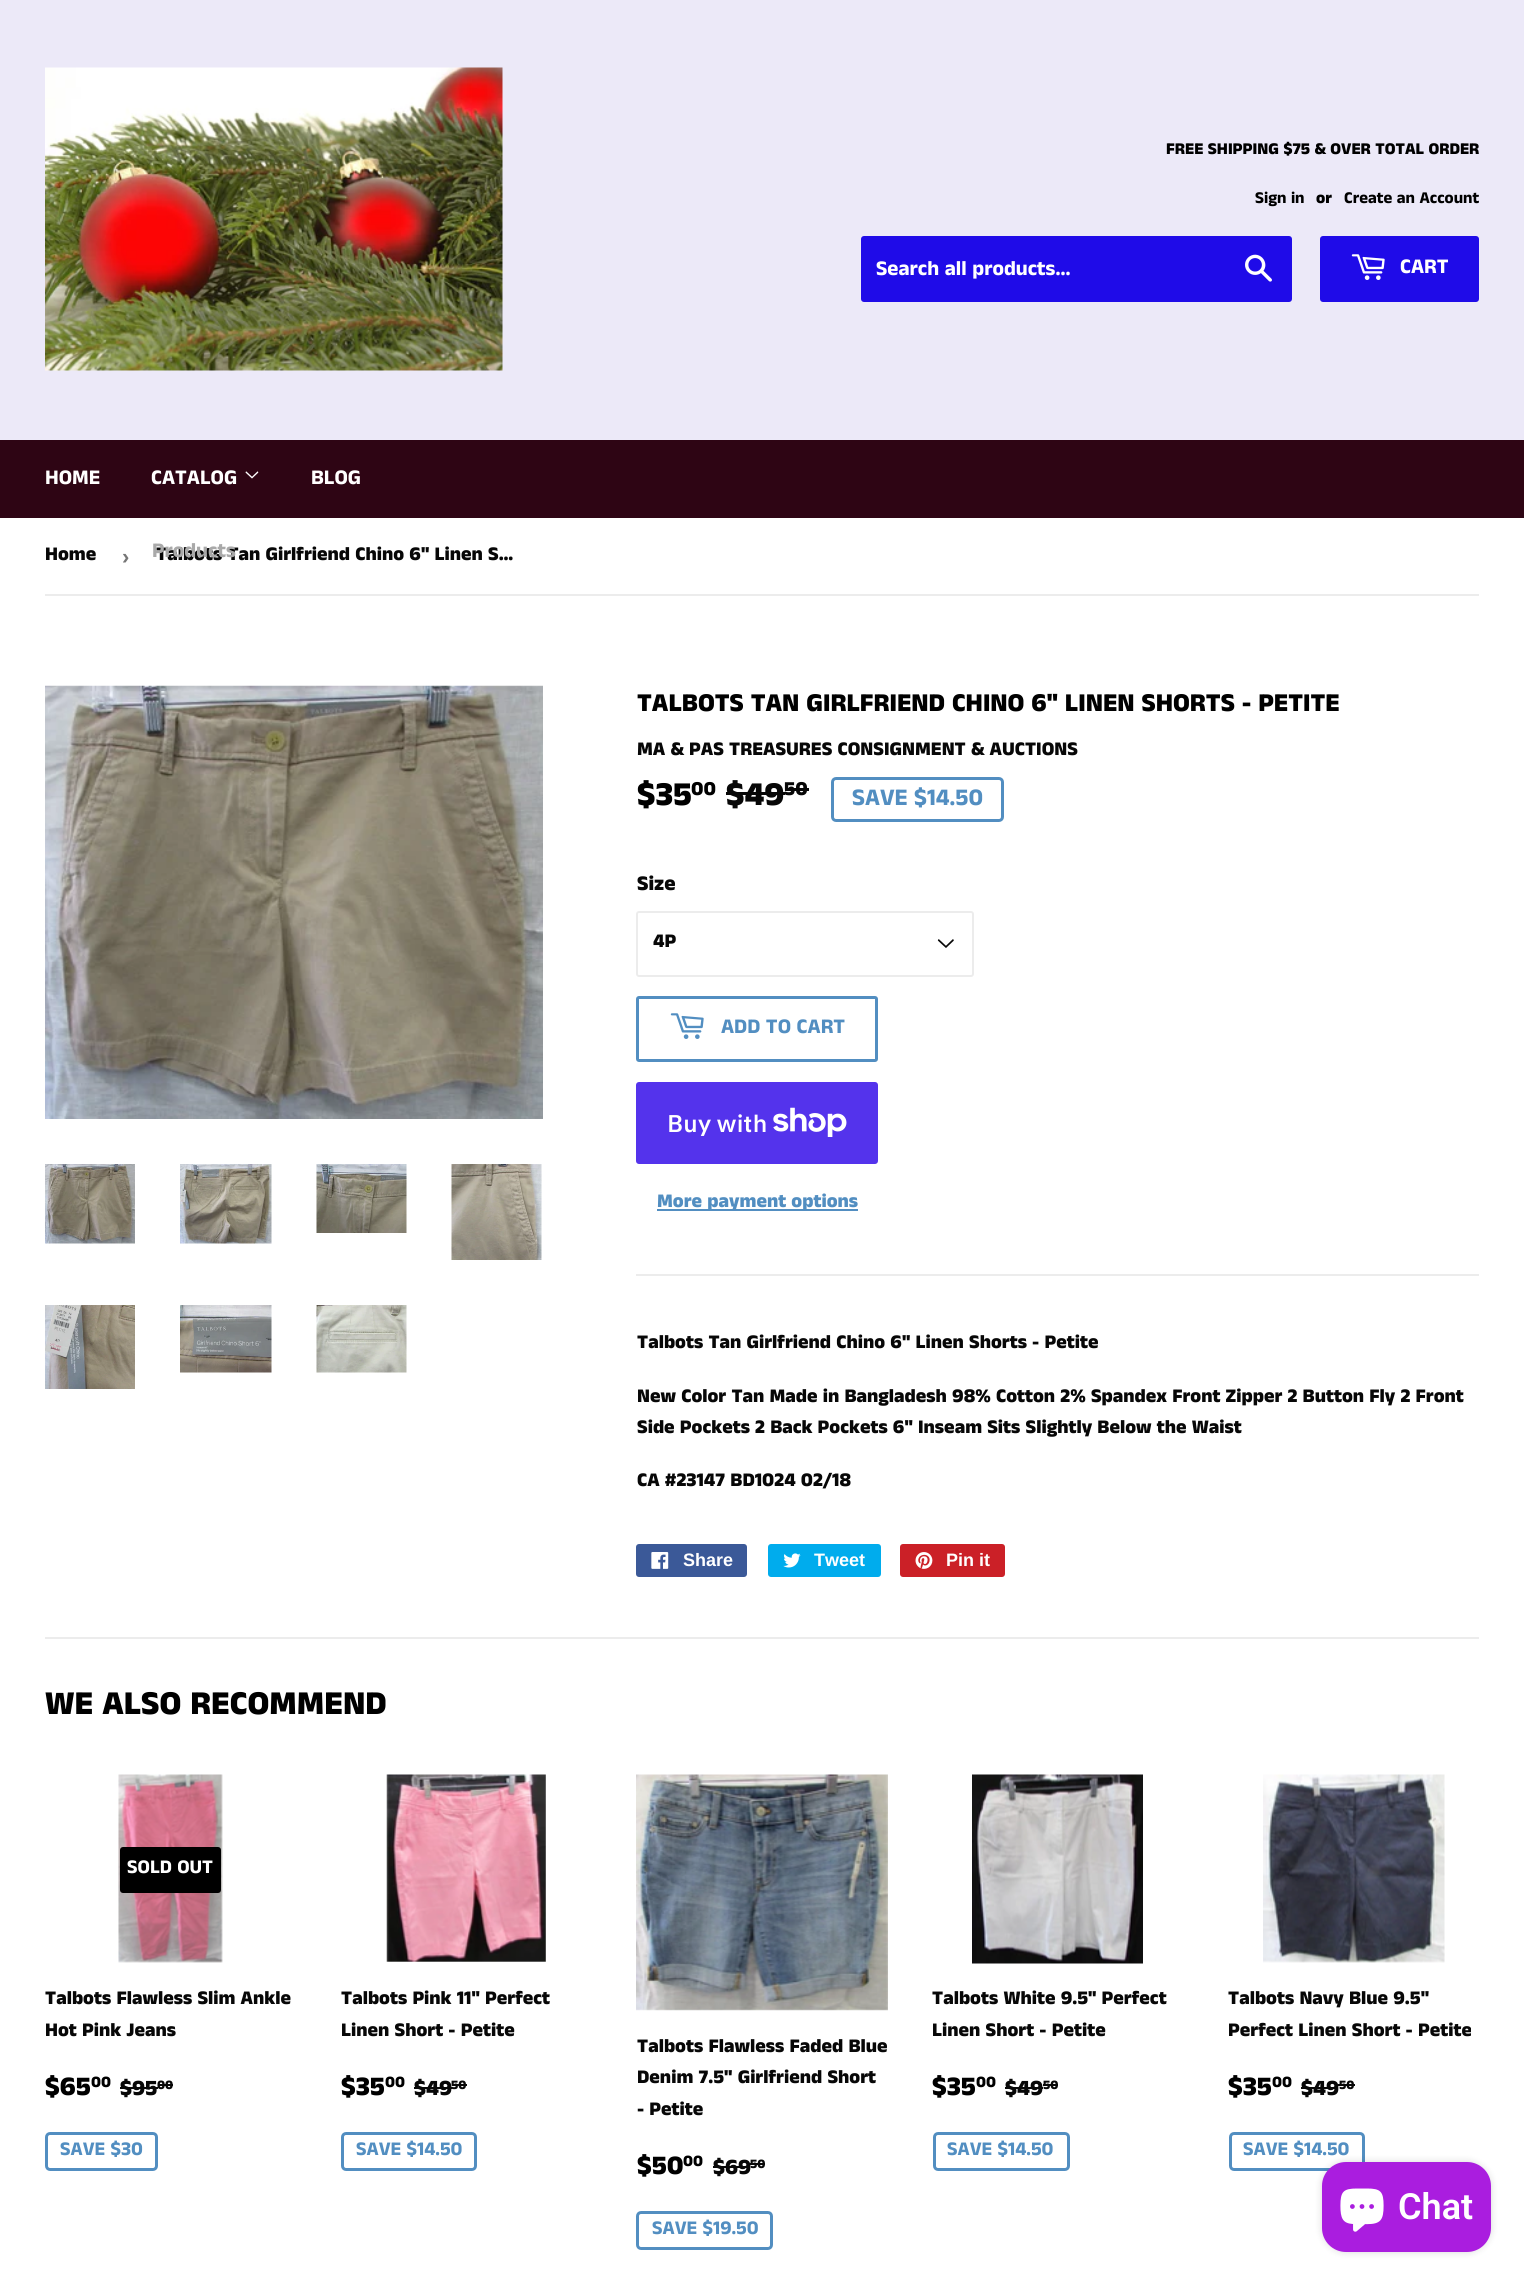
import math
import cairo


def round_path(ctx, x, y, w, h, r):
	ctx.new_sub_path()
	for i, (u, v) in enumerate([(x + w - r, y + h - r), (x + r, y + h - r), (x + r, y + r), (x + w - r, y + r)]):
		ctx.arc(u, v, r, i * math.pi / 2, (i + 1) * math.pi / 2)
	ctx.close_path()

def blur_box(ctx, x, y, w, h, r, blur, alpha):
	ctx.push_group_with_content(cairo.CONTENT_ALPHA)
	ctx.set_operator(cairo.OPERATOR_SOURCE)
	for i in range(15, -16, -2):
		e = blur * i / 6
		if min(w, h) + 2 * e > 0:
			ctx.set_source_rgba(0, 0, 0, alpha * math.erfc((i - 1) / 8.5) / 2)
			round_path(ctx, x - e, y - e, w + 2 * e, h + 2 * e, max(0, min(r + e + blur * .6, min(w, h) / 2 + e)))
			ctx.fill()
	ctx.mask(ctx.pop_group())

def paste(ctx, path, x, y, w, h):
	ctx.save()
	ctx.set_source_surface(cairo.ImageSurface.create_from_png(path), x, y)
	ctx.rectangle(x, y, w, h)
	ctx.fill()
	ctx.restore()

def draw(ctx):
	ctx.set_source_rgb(1, 1, 1)
	ctx.paint()
	ctx.set_source_rgb(0.922, 0.914, 0.969)
	ctx.rectangle(0, 0, 1524, 440)
	ctx.fill()
	paste(ctx, 'media/1.png', 45, 67, 458, 304)
	ctx.select_font_face('Anek Tamil ExtraBold')
	ctx.set_font_size(16.6)
	ctx.set_source_rgb(0, 0, 0)
	ctx.move_to(1166, 154)
	ctx.show_text('FREE SHIPPING $75 & OVER TOTAL ORDER')
	ctx.select_font_face('Anek Tamil', cairo.FONT_SLANT_NORMAL, cairo.FONT_WEIGHT_BOLD)
	ctx.move_to(1255, 203)
	ctx.show_text('Sign in')
	ctx.select_font_face('Anek Tamil ExtraBold')
	ctx.move_to(1316, 203)
	ctx.show_text('or')
	ctx.select_font_face('Anek Tamil', cairo.FONT_SLANT_NORMAL, cairo.FONT_WEIGHT_BOLD)
	ctx.move_to(1344, 203)
	ctx.show_text('Create an Account')
	ctx.set_source_rgb(0.122, 0.043, 0.91)
	round_path(ctx, 861, 236, 431, 66, 3)
	ctx.fill()
	ctx.set_font_size(21)
	ctx.set_source_rgb(1, 1, 1)
	ctx.move_to(876, 275)
	ctx.show_text('Search all products...')
	paste(ctx, 'media/2.png', 1245, 254, 27, 28)
	ctx.set_source_rgb(0.122, 0.043, 0.91)
	round_path(ctx, 1320, 236, 159, 66, 3)
	ctx.fill()
	paste(ctx, 'media/3.png', 1351, 254, 34, 26)
	ctx.set_source_rgb(1, 1, 1)
	ctx.move_to(1400, 273)
	ctx.show_text('CART')
	ctx.set_source_rgb(0.18, 0.02, 0.082)
	ctx.rectangle(0, 440, 1524, 78)
	ctx.fill()
	ctx.set_source_rgb(1, 1, 1)
	ctx.move_to(45, 484)
	ctx.show_text('HOME')
	ctx.move_to(151, 484)
	ctx.show_text('CATALOG')
	paste(ctx, 'media/4.png', 245, 471, 14, 8)
	ctx.select_font_face('Anek Tamil ExtraBold')
	ctx.set_font_size(19.5)
	ctx.set_source_rgb(0.031, 0.031, 0.031)
	ctx.move_to(156, 560)
	ctx.show_text('Talbots Tan Girlfriend Chino 6" Linen S…')
	ctx.select_font_face('Anek Tamil', cairo.FONT_SLANT_NORMAL, cairo.FONT_WEIGHT_BOLD)
	ctx.set_font_size(21)
	ctx.set_source_rgb(0.663, 0.663, 0.663)
	ctx.move_to(152, 557)
	ctx.show_text('Products')
	ctx.set_source_rgb(1, 1, 1)
	ctx.move_to(311, 484)
	ctx.show_text('BLOG')
	ctx.set_source_rgb(0.925, 0.925, 0.925)
	ctx.rectangle(45, 594, 1434, 2)
	ctx.fill()
	ctx.select_font_face('Anek Tamil ExtraBold')
	ctx.set_font_size(19.5)
	ctx.set_source_rgb(0.031, 0.031, 0.031)
	ctx.move_to(45, 560)
	ctx.show_text('Home')
	ctx.select_font_face('Liberation Sans', cairo.FONT_SLANT_NORMAL, cairo.FONT_WEIGHT_BOLD)
	ctx.set_font_size(22)
	ctx.set_source_rgb(0.463, 0.463, 0.463)
	ctx.move_to(122, 564)
	ctx.show_text('›')
	paste(ctx, 'media/5.png', 45, 685, 498, 434)
	paste(ctx, 'media/6.png', 45, 1164, 90, 80)
	paste(ctx, 'media/7.png', 180, 1164, 92, 80)
	paste(ctx, 'media/8.png', 316, 1164, 91, 69)
	paste(ctx, 'media/9.png', 451, 1164, 91, 96)
	paste(ctx, 'media/10.png', 45, 1305, 90, 84)
	paste(ctx, 'media/11.png', 180, 1305, 92, 68)
	paste(ctx, 'media/12.png', 316, 1305, 91, 68)
	ctx.select_font_face('Anek Tamil ExtraBold')
	ctx.set_font_size(26)
	ctx.set_source_rgb(0, 0, 0)
	ctx.move_to(637, 711)
	ctx.show_text('TALBOTS TAN GIRLFRIEND CHINO 6" LINEN SHORTS - PETITE')
	ctx.set_font_size(19.5)
	ctx.set_source_rgb(0.031, 0.031, 0.031)
	ctx.move_to(637, 755)
	ctx.show_text('MA & PAS TREASURES CONSIGNMENT & AUCTIONS')
	ctx.set_font_size(33.75)
	ctx.set_source_rgb(0, 0, 0)
	ctx.move_to(637, 805)
	ctx.show_text('$35')
	ctx.set_font_size(20)
	ctx.move_to(691, 795)
	ctx.show_text('00')
	ctx.set_font_size(33.75)
	ctx.set_source_rgb(0.031, 0.031, 0.031)
	ctx.move_to(726, 805)
	ctx.show_text('$49')
	ctx.rectangle(726, 792, 59, 3)
	ctx.fill()
	ctx.set_font_size(20)
	ctx.move_to(784, 795)
	ctx.show_text('50')
	ctx.rectangle(785, 788, 24, 3)
	ctx.fill()
	round_path(ctx, 832.5, 778.5, 170, 42, 3.5)
	ctx.set_source_rgb(0.322, 0.557, 0.757)
	ctx.set_line_width(3)
	ctx.stroke()
	ctx.select_font_face('Anek Tamil', cairo.FONT_SLANT_NORMAL, cairo.FONT_WEIGHT_BOLD)
	ctx.set_font_size(24)
	ctx.move_to(852, 805)
	ctx.show_text('SAVE $14.50')
	ctx.select_font_face('Anek Tamil ExtraBold')
	ctx.set_font_size(21)
	ctx.set_source_rgb(0.031, 0.031, 0.031)
	ctx.move_to(637, 890)
	ctx.show_text('Size')
	paste(ctx, 'media/13.png', 937, 939, 17, 9)
	round_path(ctx, 637, 912, 336, 64, 2)
	ctx.set_source_rgb(0.925, 0.925, 0.925)
	ctx.set_line_width(2)
	ctx.stroke()
	ctx.set_font_size(19.5)
	ctx.set_source_rgb(0.031, 0.031, 0.031)
	ctx.move_to(653, 947)
	ctx.show_text('4P')
	round_path(ctx, 637.5, 997.5, 239, 63, 1.5)
	ctx.set_source_rgb(0.322, 0.557, 0.757)
	ctx.set_line_width(3)
	ctx.stroke()
	paste(ctx, 'media/14.png', 670, 1013, 34, 26)
	ctx.select_font_face('Anek Tamil', cairo.FONT_SLANT_NORMAL, cairo.FONT_WEIGHT_BOLD)
	ctx.set_font_size(21)
	ctx.move_to(721, 1033)
	ctx.show_text('ADD TO CART')
	ctx.set_source_rgb(0.329, 0.2, 0.922)
	round_path(ctx, 636, 1082, 242, 82, 3)
	ctx.fill()
	ctx.select_font_face('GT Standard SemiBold')
	ctx.set_font_size(24)
	ctx.set_source_rgb(1, 1, 1)
	ctx.move_to(667, 1132)
	ctx.show_text('Buy with')
	paste(ctx, 'media/15.png', 773, 1107, 74, 30)
	ctx.set_source_rgb(0.322, 0.557, 0.757)
	ctx.rectangle(657, 1209, 201, 2)
	ctx.fill()
	ctx.select_font_face('Anek Tamil ExtraBold')
	ctx.set_font_size(19.5)
	ctx.move_to(657, 1207)
	ctx.show_text('More payment options')
	ctx.set_source_rgb(0.925, 0.925, 0.925)
	ctx.rectangle(636, 1274, 843, 2)
	ctx.fill()
	ctx.set_source_rgb(0.031, 0.031, 0.031)
	for x, y, s in [
		(637, 1348, 'Talbots Tan Girlfriend Chino 6" Linen Shorts - Petite'),
		(637, 1402, 'New Color Tan Made in Bangladesh 98% Cotton 2% Spandex Front Zipper 2 Button Fly 2 Front'),
		(637, 1433, 'Side Pockets 2 Back Pockets 6" Inseam Sits Slightly Below the Waist'),
		(637, 1486, 'CA #23147 BD1024 02/18'),
	]:
		ctx.move_to(x, y)
		ctx.show_text(s)
	ctx.set_source_rgb(0.231, 0.349, 0.596)
	round_path(ctx, 636, 1544, 111, 33, 3)
	ctx.fill()
	paste(ctx, 'media/16.png', 651, 1552, 18, 17)
	ctx.select_font_face('Liberation Sans', cairo.FONT_SLANT_NORMAL, cairo.FONT_WEIGHT_BOLD)
	ctx.set_font_size(18)
	ctx.set_source_rgb(1, 1, 1)
	ctx.move_to(683, 1566)
	ctx.show_text('Share')
	ctx.set_source_rgb(0, 0.675, 0.929)
	round_path(ctx, 768, 1544, 113, 33, 3)
	ctx.fill()
	paste(ctx, 'media/17.png', 783, 1553, 18, 15)
	ctx.set_source_rgb(1, 1, 1)
	ctx.move_to(814, 1566)
	ctx.show_text('Tweet')
	ctx.set_source_rgb(0.796, 0.125, 0.153)
	round_path(ctx, 900, 1544, 105, 33, 3)
	ctx.fill()
	paste(ctx, 'media/18.png', 915, 1552, 18, 17)
	ctx.set_source_rgb(1, 1, 1)
	ctx.move_to(946, 1566)
	ctx.show_text('Pin it')
	ctx.set_source_rgb(0.925, 0.925, 0.925)
	ctx.rectangle(45, 1637, 1434, 2)
	ctx.fill()
	ctx.select_font_face('Anek Tamil ExtraBold')
	ctx.set_font_size(33.75)
	ctx.set_source_rgb(0, 0, 0)
	ctx.move_to(45, 1714)
	ctx.show_text('WE ALSO RECOMMEND')
	paste(ctx, 'media/19.png', 118, 1774, 105, 189)
	round_path(ctx, 120, 1847, 101, 46, 3)
	ctx.fill()
	ctx.select_font_face('Anek Tamil', cairo.FONT_SLANT_NORMAL, cairo.FONT_WEIGHT_BOLD)
	ctx.set_font_size(19.5)
	ctx.set_source_rgb(1, 1, 1)
	ctx.move_to(127, 1873)
	ctx.show_text('SOLD OUT')
	ctx.select_font_face('Anek Tamil ExtraBold')
	ctx.set_source_rgb(0.031, 0.031, 0.031)
	ctx.move_to(45, 2004)
	ctx.show_text('Talbots Flawless Slim Ankle')
	ctx.move_to(45, 2036)
	ctx.show_text('Hot Pink Jeans')
	ctx.set_font_size(27)
	ctx.set_source_rgb(0, 0, 0)
	ctx.move_to(45, 2095)
	ctx.show_text('$65')
	ctx.set_font_size(16)
	ctx.move_to(91, 2087)
	ctx.show_text('00')
	ctx.set_font_size(22)
	ctx.set_source_rgb(0.031, 0.031, 0.031)
	ctx.move_to(120, 2095)
	ctx.show_text('$95')
	ctx.rectangle(120, 2087, 38, 2)
	ctx.fill()
	ctx.set_font_size(13)
	ctx.move_to(157, 2089)
	ctx.show_text('00')
	ctx.rectangle(158, 2084, 15, 2)
	ctx.fill()
	round_path(ctx, 46.5, 2133.5, 110, 36, 3.5)
	ctx.set_source_rgb(0.322, 0.557, 0.757)
	ctx.stroke()
	ctx.select_font_face('Anek Tamil', cairo.FONT_SLANT_NORMAL, cairo.FONT_WEIGHT_BOLD)
	ctx.set_font_size(19.5)
	ctx.move_to(60, 2155)
	ctx.show_text('SAVE $30')
	paste(ctx, 'media/20.png', 386, 1774, 160, 188)
	ctx.select_font_face('Anek Tamil ExtraBold')
	ctx.set_source_rgb(0.031, 0.031, 0.031)
	ctx.move_to(341, 2004)
	ctx.show_text('Talbots Pink 11" Perfect')
	ctx.move_to(341, 2036)
	ctx.show_text('Linen Short - Petite')
	ctx.set_font_size(27)
	ctx.set_source_rgb(0, 0, 0)
	ctx.move_to(341, 2095)
	ctx.show_text('$35')
	ctx.set_font_size(16)
	ctx.move_to(385, 2087)
	ctx.show_text('00')
	ctx.set_font_size(22)
	ctx.set_source_rgb(0.031, 0.031, 0.031)
	ctx.move_to(414, 2095)
	ctx.show_text('$49')
	ctx.rectangle(414, 2087, 38, 2)
	ctx.fill()
	ctx.set_font_size(13)
	ctx.move_to(451, 2089)
	ctx.show_text('50')
	ctx.rectangle(452, 2084, 15, 2)
	ctx.fill()
	round_path(ctx, 342.5, 2133.5, 133, 36, 3.5)
	ctx.set_source_rgb(0.322, 0.557, 0.757)
	ctx.stroke()
	ctx.select_font_face('Anek Tamil', cairo.FONT_SLANT_NORMAL, cairo.FONT_WEIGHT_BOLD)
	ctx.set_font_size(19.5)
	ctx.move_to(356, 2155)
	ctx.show_text('SAVE $14.50')
	paste(ctx, 'media/21.png', 636, 1774, 252, 237)
	ctx.select_font_face('Anek Tamil ExtraBold')
	ctx.set_source_rgb(0.031, 0.031, 0.031)
	for x, y, s in [
		(637, 2052, 'Talbots Flawless Faded Blue'),
		(637, 2083, 'Denim 7.5" Girlfriend Short'),
		(637, 2115, '- Petite'),
	]:
		ctx.move_to(x, y)
		ctx.show_text(s)
	ctx.set_font_size(27)
	ctx.set_source_rgb(0, 0, 0)
	ctx.move_to(637, 2174)
	ctx.show_text('$50')
	ctx.set_font_size(16)
	ctx.move_to(683, 2166)
	ctx.show_text('00')
	ctx.set_font_size(22)
	ctx.set_source_rgb(0.031, 0.031, 0.031)
	ctx.move_to(713, 2174)
	ctx.show_text('$69')
	ctx.rectangle(713, 2166, 37, 2)
	ctx.fill()
	ctx.set_font_size(13)
	ctx.move_to(750, 2168)
	ctx.show_text('50')
	ctx.rectangle(750, 2163, 15, 2)
	ctx.fill()
	round_path(ctx, 637.5, 2212.5, 134, 36, 3.5)
	ctx.set_source_rgb(0.322, 0.557, 0.757)
	ctx.stroke()
	ctx.select_font_face('Anek Tamil', cairo.FONT_SLANT_NORMAL, cairo.FONT_WEIGHT_BOLD)
	ctx.set_font_size(19.5)
	ctx.move_to(652, 2234)
	ctx.show_text('SAVE $19.50')
	paste(ctx, 'media/22.png', 972, 1774, 171, 190)
	ctx.select_font_face('Anek Tamil ExtraBold')
	ctx.set_source_rgb(0.031, 0.031, 0.031)
	ctx.move_to(932, 2004)
	ctx.show_text('Talbots White 9.5" Perfect')
	ctx.move_to(932, 2036)
	ctx.show_text('Linen Short - Petite')
	ctx.set_font_size(27)
	ctx.set_source_rgb(0, 0, 0)
	ctx.move_to(932, 2095)
	ctx.show_text('$35')
	ctx.set_font_size(16)
	ctx.move_to(976, 2087)
	ctx.show_text('00')
	ctx.set_font_size(22)
	ctx.set_source_rgb(0.031, 0.031, 0.031)
	ctx.move_to(1005, 2095)
	ctx.show_text('$49')
	ctx.rectangle(1005, 2087, 38, 2)
	ctx.fill()
	ctx.set_font_size(13)
	ctx.move_to(1043, 2089)
	ctx.show_text('50')
	ctx.rectangle(1043, 2084, 15, 2)
	ctx.fill()
	round_path(ctx, 934.5, 2133.5, 134, 36, 3.5)
	ctx.set_source_rgb(0.322, 0.557, 0.757)
	ctx.stroke()
	ctx.select_font_face('Anek Tamil', cairo.FONT_SLANT_NORMAL, cairo.FONT_WEIGHT_BOLD)
	ctx.set_font_size(19.5)
	ctx.move_to(947, 2155)
	ctx.show_text('SAVE $14.50')
	paste(ctx, 'media/23.png', 1263, 1774, 182, 189)
	ctx.select_font_face('Anek Tamil ExtraBold')
	ctx.set_source_rgb(0.031, 0.031, 0.031)
	ctx.move_to(1228, 2004)
	ctx.show_text('Talbots Navy Blue 9.5"')
	ctx.move_to(1228, 2036)
	ctx.show_text('Perfect Linen Short - Petite')
	ctx.set_font_size(27)
	ctx.set_source_rgb(0, 0, 0)
	ctx.move_to(1228, 2095)
	ctx.show_text('$35')
	ctx.set_font_size(16)
	ctx.move_to(1272, 2087)
	ctx.show_text('00')
	ctx.set_font_size(22)
	ctx.set_source_rgb(0.031, 0.031, 0.031)
	ctx.move_to(1301, 2095)
	ctx.show_text('$49')
	ctx.rectangle(1301, 2087, 37, 2)
	ctx.fill()
	ctx.set_font_size(13)
	ctx.move_to(1339, 2089)
	ctx.show_text('50')
	ctx.rectangle(1338, 2084, 17, 2)
	ctx.fill()
	round_path(ctx, 1230.5, 2133.5, 133, 36, 3.5)
	ctx.set_source_rgb(0.322, 0.557, 0.757)
	ctx.stroke()
	ctx.select_font_face('Anek Tamil', cairo.FONT_SLANT_NORMAL, cairo.FONT_WEIGHT_BOLD)
	ctx.set_font_size(19.5)
	ctx.move_to(1243, 2155)
	ctx.show_text('SAVE $14.50')
	ctx.set_source_rgb(0, 0, 0)
	blur_box(ctx, 1322, 2162, 169, 90, 24, 4, 0.15)
	ctx.set_source_rgb(0.667, 0.114, 0.875)
	round_path(ctx, 1322, 2162, 169, 90, 24)
	ctx.fill()
	paste(ctx, 'media/24.png', 1340, 2188, 44, 44)
	ctx.select_font_face('Roboto SemiBold')
	ctx.set_font_size(36)
	ctx.set_source_rgb(1, 1, 1)
	ctx.move_to(1398, 2219)
	ctx.show_text('Chat')


surface = cairo.ImageSurface(cairo.FORMAT_RGB24, 1524, 2282)
ctx = cairo.Context(surface)
options = cairo.FontOptions()
options.set_hint_metrics(cairo.HINT_METRICS_OFF)
options.set_hint_style(cairo.HINT_STYLE_NONE)
ctx.set_font_options(options)
ctx.set_miter_limit(4)
draw(ctx)
surface.write_to_png('image.png')
